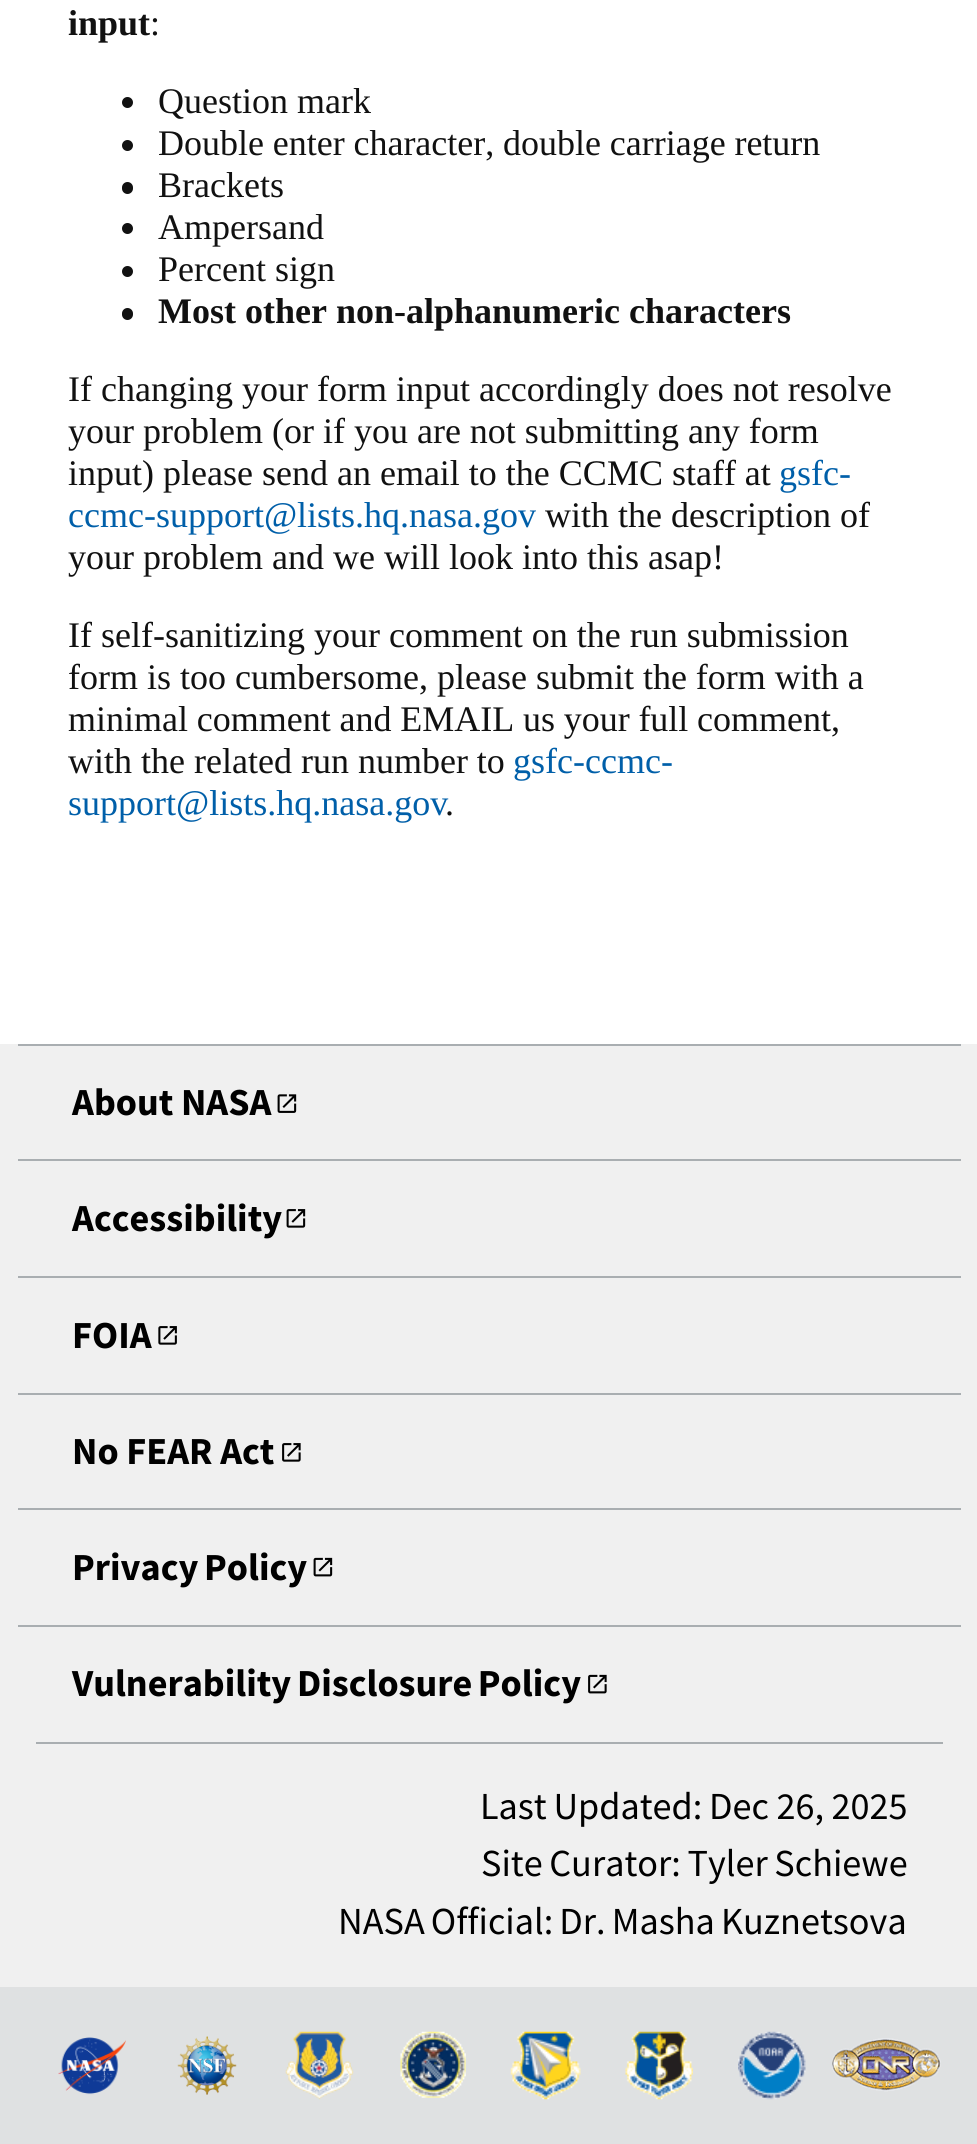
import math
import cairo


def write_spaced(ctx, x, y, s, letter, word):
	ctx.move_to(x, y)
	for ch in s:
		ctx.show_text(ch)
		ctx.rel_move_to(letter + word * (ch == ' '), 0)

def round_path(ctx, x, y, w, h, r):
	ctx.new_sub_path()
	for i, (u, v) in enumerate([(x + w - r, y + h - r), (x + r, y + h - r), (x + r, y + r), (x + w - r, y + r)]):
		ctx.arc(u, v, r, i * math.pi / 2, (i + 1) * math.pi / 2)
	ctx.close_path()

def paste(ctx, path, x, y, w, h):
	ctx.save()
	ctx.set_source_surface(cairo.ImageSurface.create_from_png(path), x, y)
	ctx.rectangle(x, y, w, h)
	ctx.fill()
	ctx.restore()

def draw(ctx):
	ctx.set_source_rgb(1, 1, 1)
	ctx.paint()
	ctx.select_font_face('Liberation Serif', cairo.FONT_SLANT_NORMAL, cairo.FONT_WEIGHT_BOLD)
	ctx.set_font_size(36)
	ctx.set_source_rgb(0.067, 0.067, 0.067)
	ctx.move_to(68, 35)
	ctx.show_text('input')
	ctx.select_font_face('Liberation Serif')
	ctx.move_to(150, 35)
	ctx.show_text(':')
	ctx.new_path()
	ctx.arc(127.5, 102.5, 5.5, 0, 2 * math.pi)
	ctx.fill()
	ctx.move_to(158, 113)
	ctx.show_text('Question mark')
	ctx.new_path()
	ctx.arc(127.5, 145.5, 5.5, 0, 2 * math.pi)
	ctx.fill()
	write_spaced(ctx, 158, 155, 'Double enter character, double carriage return', 0, -0.25)
	round_path(ctx, 122, 182, 11, 12, 5.5)
	ctx.fill()
	ctx.move_to(158, 197)
	ctx.show_text('Brackets')
	ctx.new_path()
	ctx.arc(127.5, 228.5, 5.5, 0, 2 * math.pi)
	ctx.fill()
	ctx.move_to(158, 239)
	ctx.show_text('Ampersand')
	ctx.new_path()
	ctx.arc(127.5, 271.5, 5.5, 0, 2 * math.pi)
	ctx.fill()
	ctx.move_to(158, 281)
	ctx.show_text('Percent sign')
	round_path(ctx, 122, 308, 11, 12, 5.5)
	ctx.fill()
	ctx.select_font_face('Liberation Serif', cairo.FONT_SLANT_NORMAL, cairo.FONT_WEIGHT_BOLD)
	ctx.move_to(158, 323)
	ctx.show_text('Most other non-alphanumeric characters')
	ctx.select_font_face('Liberation Serif')
	for x, y, s in [
		(68, 401, 'If changing your form input accordingly does not resolve'),
		(68, 443, 'your problem (or if you are not submitting any form'),
		(68, 485, 'input) please send an email to the CCMC staff at'),
	]:
		ctx.move_to(x, y)
		ctx.show_text(s)
	ctx.set_source_rgb(0, 0.373, 0.663)
	ctx.move_to(779, 485)
	ctx.show_text('gsfc-')
	ctx.move_to(68, 527)
	ctx.show_text('ccmc-support@lists.hq.nasa.gov')
	ctx.set_source_rgb(0.067, 0.067, 0.067)
	for x, y, s in [
		(545, 527, 'with the description of'),
		(68, 569, 'your problem and we will look into this asap!'),
		(68, 647, 'If self-sanitizing your comment on the run submission'),
		(68, 689, 'form is too cumbersome, please submit the form with a'),
	]:
		ctx.move_to(x, y)
		ctx.show_text(s)
	write_spaced(ctx, 68, 731, 'minimal comment and EMAIL us your full comment,', 0, -0.25)
	ctx.move_to(68, 773)
	ctx.show_text('with the related run number to')
	ctx.set_source_rgb(0, 0.373, 0.663)
	ctx.move_to(513, 773)
	ctx.show_text('gsfc-ccmc-')
	ctx.move_to(68, 815)
	ctx.show_text('support@lists.hq.nasa.gov')
	ctx.set_source_rgb(0.067, 0.067, 0.067)
	ctx.move_to(445, 815)
	ctx.show_text('.')
	ctx.set_source_rgb(0.941, 0.941, 0.941)
	ctx.rectangle(0, 1044, 977, 943)
	ctx.fill()
	ctx.set_source_rgb(0.663, 0.682, 0.694)
	ctx.rectangle(36, 1742, 907, 2)
	ctx.rectangle(18, 1044, 943, 2)
	ctx.fill()
	ctx.select_font_face('Source Sans Pro', cairo.FONT_SLANT_NORMAL, cairo.FONT_WEIGHT_BOLD)
	ctx.set_font_size(38.2)
	ctx.set_source_rgb(0, 0, 0)
	ctx.move_to(72, 1115)
	ctx.show_text('About NASA')
	paste(ctx, 'media/1.png', 277, 1094, 20, 19)
	ctx.set_source_rgb(0.663, 0.682, 0.694)
	ctx.rectangle(18, 1159, 943, 2)
	ctx.fill()
	ctx.set_source_rgb(0, 0, 0)
	ctx.move_to(72, 1231)
	ctx.show_text('Accessibility')
	paste(ctx, 'media/2.png', 286, 1209, 20, 19)
	ctx.set_source_rgb(0.663, 0.682, 0.694)
	ctx.rectangle(18, 1276, 943, 2)
	ctx.fill()
	ctx.set_source_rgb(0, 0, 0)
	ctx.move_to(72, 1348)
	ctx.show_text('FOIA')
	paste(ctx, 'media/3.png', 158, 1326, 19, 19)
	ctx.set_source_rgb(0.663, 0.682, 0.694)
	ctx.rectangle(18, 1393, 943, 2)
	ctx.fill()
	ctx.set_source_rgb(0, 0, 0)
	ctx.move_to(72, 1464)
	ctx.show_text('No FEAR Act')
	paste(ctx, 'media/4.png', 282, 1443, 19, 19)
	ctx.set_source_rgb(0.663, 0.682, 0.694)
	ctx.rectangle(18, 1508, 943, 2)
	ctx.fill()
	ctx.set_source_rgb(0, 0, 0)
	write_spaced(ctx, 72, 1580, 'Privacy Policy', 0, -2)
	paste(ctx, 'media/5.png', 313, 1557, 20, 20)
	ctx.set_source_rgb(0.663, 0.682, 0.694)
	ctx.rectangle(18, 1625, 943, 2)
	ctx.fill()
	ctx.set_source_rgb(0, 0, 0)
	write_spaced(ctx, 72, 1696, 'Vulnerability Disclosure Policy', 0, -2)
	paste(ctx, 'media/6.png', 588, 1674, 19, 20)
	ctx.select_font_face('Source Sans Pro')
	write_spaced(ctx, 480, 1819, 'Last Updated:', 0, -1)
	ctx.move_to(709, 1819)
	ctx.show_text('Dec 26, 2025')
	write_spaced(ctx, 481, 1876, 'Site Curator: Tyler Schiewe', 0, -1)
	write_spaced(ctx, 338, 1934, 'NASA Official: Dr. Masha Kuznetsova', 0, -1.5)
	ctx.set_source_rgb(0.875, 0.882, 0.886)
	ctx.rectangle(0, 1987, 977, 157)
	ctx.fill()
	paste(ctx, 'media/7.png', 58, 2037, 68, 58)
	paste(ctx, 'media/8.png', 177, 2036, 60, 59)
	paste(ctx, 'media/9.png', 285, 2031, 69, 69)
	paste(ctx, 'media/10.png', 400, 2031, 66, 67)
	paste(ctx, 'media/11.png', 510, 2031, 71, 69)
	paste(ctx, 'media/12.png', 625, 2031, 68, 69)
	paste(ctx, 'media/13.png', 738, 2031, 68, 69)
	paste(ctx, 'media/14.png', 832, 2038, 109, 54)


surface = cairo.ImageSurface(cairo.FORMAT_RGB24, 977, 2144)
ctx = cairo.Context(surface)
options = cairo.FontOptions()
options.set_hint_metrics(cairo.HINT_METRICS_OFF)
options.set_hint_style(cairo.HINT_STYLE_NONE)
ctx.set_font_options(options)
ctx.set_miter_limit(4)
draw(ctx)
surface.write_to_png('image.png')
